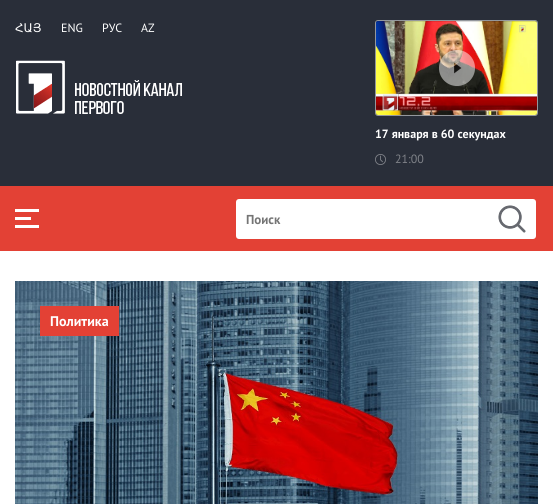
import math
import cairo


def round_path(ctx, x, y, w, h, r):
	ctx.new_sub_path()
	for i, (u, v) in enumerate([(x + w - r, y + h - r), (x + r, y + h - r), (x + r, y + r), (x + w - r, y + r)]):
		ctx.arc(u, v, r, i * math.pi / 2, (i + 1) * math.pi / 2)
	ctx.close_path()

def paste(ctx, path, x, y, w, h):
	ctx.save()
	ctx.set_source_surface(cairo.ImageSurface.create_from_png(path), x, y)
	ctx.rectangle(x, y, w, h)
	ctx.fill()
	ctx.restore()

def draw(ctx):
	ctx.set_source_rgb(1, 1, 1)
	ctx.paint()
	ctx.set_source_rgb(0.161, 0.18, 0.224)
	ctx.rectangle(0, 0, 553, 186)
	ctx.fill()
	ctx.select_font_face('DejaVu Sans')
	ctx.set_font_size(12)
	ctx.set_source_rgb(1, 1, 1)
	ctx.move_to(15, 32)
	ctx.show_text('ՀԱՅ')
	ctx.select_font_face('PT Sans')
	for x, y, s in [
		(61, 32, 'ENG'),
		(102, 32, 'РУС'),
		(141, 32, 'AZ'),
	]:
		ctx.move_to(x, y)
		ctx.show_text(s)
	paste(ctx, 'media/1.png', 16, 60, 166, 54)
	round_path(ctx, 375.5, 20.5, 162, 95, 2.5)
	ctx.set_source_rgb(0.58, 0.592, 0.612)
	ctx.set_line_width(1)
	ctx.stroke()
	paste(ctx, 'media/2.png', 376, 21, 161, 94)
	paste(ctx, 'media/3.png', 439, 50, 36, 36)
	ctx.select_font_face('PT Sans', cairo.FONT_SLANT_NORMAL, cairo.FONT_WEIGHT_BOLD)
	ctx.set_source_rgb(1, 1, 1)
	ctx.move_to(375, 138)
	ctx.show_text('17 января в 60 секундах')
	paste(ctx, 'media/4.png', 375, 154, 11, 11)
	ctx.select_font_face('PT Sans')
	ctx.set_source_rgb(0.498, 0.51, 0.533)
	ctx.move_to(395, 163)
	ctx.show_text('21:00')
	ctx.set_source_rgb(0.89, 0.255, 0.208)
	ctx.rectangle(0, 186, 553, 65)
	ctx.fill()
	ctx.set_source_rgb(1, 1, 1)
	ctx.rectangle(15, 209, 24, 3)
	ctx.rectangle(15, 217, 16, 3)
	ctx.rectangle(15, 225, 24, 3)
	ctx.fill()
	round_path(ctx, 236, 199, 300, 40, 3)
	ctx.fill()
	ctx.select_font_face('PT Sans', cairo.FONT_SLANT_NORMAL, cairo.FONT_WEIGHT_BOLD)
	ctx.set_font_size(13)
	ctx.set_source_rgb(0.459, 0.459, 0.459)
	ctx.move_to(246, 224)
	ctx.show_text('Поиск')
	paste(ctx, 'media/5.png', 498, 205, 28, 28)
	paste(ctx, 'media/6.png', 15, 281, 523, 223)
	ctx.set_source_rgb(0.89, 0.255, 0.208)
	ctx.rectangle(40, 306, 79, 30)
	ctx.fill()
	ctx.set_font_size(14)
	ctx.set_source_rgb(1, 1, 1)
	ctx.move_to(50, 326)
	ctx.show_text('Политика')


surface = cairo.ImageSurface(cairo.FORMAT_RGB24, 553, 504)
ctx = cairo.Context(surface)
options = cairo.FontOptions()
options.set_hint_metrics(cairo.HINT_METRICS_OFF)
options.set_hint_style(cairo.HINT_STYLE_NONE)
ctx.set_font_options(options)
ctx.set_miter_limit(4)
draw(ctx)
surface.write_to_png('image.png')
